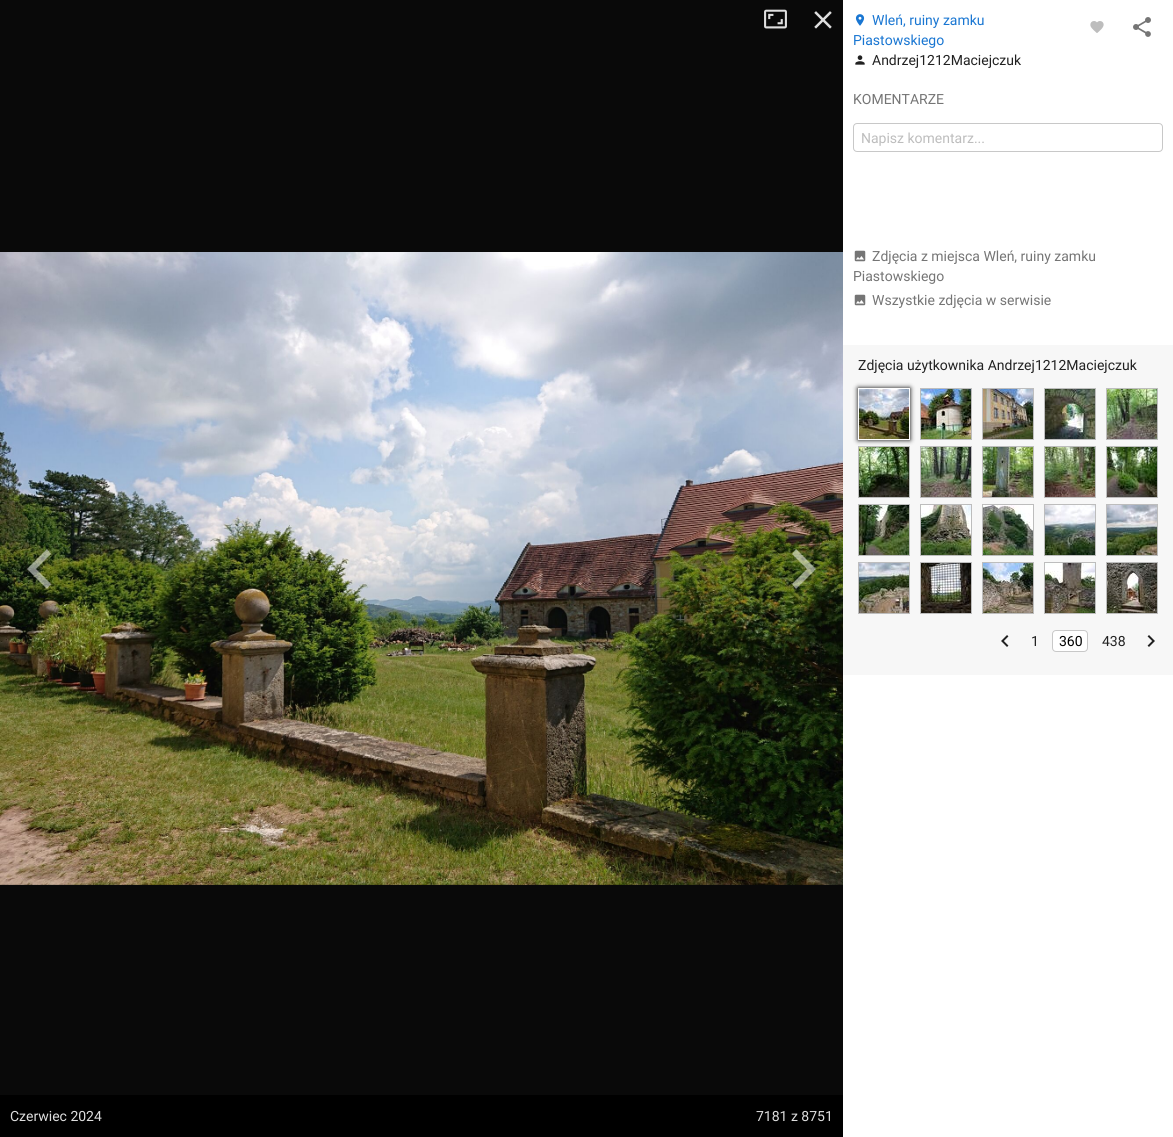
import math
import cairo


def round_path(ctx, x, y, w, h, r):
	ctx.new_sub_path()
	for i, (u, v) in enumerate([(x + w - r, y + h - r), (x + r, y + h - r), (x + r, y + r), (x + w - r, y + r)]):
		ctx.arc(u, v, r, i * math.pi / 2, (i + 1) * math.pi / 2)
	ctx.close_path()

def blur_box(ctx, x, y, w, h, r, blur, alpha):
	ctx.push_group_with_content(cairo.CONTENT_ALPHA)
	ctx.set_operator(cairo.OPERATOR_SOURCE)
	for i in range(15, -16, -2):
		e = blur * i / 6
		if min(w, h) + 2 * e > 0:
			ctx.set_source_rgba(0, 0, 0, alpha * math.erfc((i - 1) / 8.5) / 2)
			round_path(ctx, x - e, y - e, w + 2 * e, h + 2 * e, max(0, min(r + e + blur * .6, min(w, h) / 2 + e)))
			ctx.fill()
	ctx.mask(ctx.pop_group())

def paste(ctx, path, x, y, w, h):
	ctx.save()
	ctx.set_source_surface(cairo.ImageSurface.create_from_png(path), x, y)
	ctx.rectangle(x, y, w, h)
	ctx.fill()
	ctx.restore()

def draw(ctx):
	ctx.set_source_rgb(0.039, 0.039, 0.039)
	ctx.paint()
	ctx.set_source_rgb(1, 1, 1)
	ctx.rectangle(843, 0, 330, 1137)
	ctx.fill()
	paste(ctx, 'media/1.png', 855, 14, 10, 12)
	ctx.select_font_face('Roboto')
	ctx.set_font_size(14)
	ctx.set_source_rgb(0.098, 0.463, 0.824)
	ctx.move_to(872, 25)
	ctx.show_text('Wleń, ruiny zamku')
	ctx.move_to(853, 45)
	ctx.show_text('Piastowskiego')
	paste(ctx, 'media/2.png', 855, 55, 10, 10)
	ctx.set_source_rgb(0.129, 0.129, 0.129)
	ctx.move_to(872, 65)
	ctx.show_text('Andrzej1212Maciejczuk')
	paste(ctx, 'media/3.png', 1090, 21, 14, 12)
	paste(ctx, 'media/4.png', 1133, 17, 18, 20)
	ctx.set_source_rgb(0.459, 0.459, 0.459)
	ctx.move_to(853, 104)
	ctx.show_text('KOMENTARZE')
	round_path(ctx, 853.5, 123.5, 309, 28, 3.5)
	ctx.set_source_rgb(0.784, 0.784, 0.784)
	ctx.set_line_width(1)
	ctx.stroke()
	ctx.set_source_rgb(0.741, 0.741, 0.741)
	ctx.move_to(861, 143)
	ctx.show_text('Napisz komentarz...')
	paste(ctx, 'media/5.png', 854, 250, 12, 12)
	ctx.set_source_rgb(0.459, 0.459, 0.459)
	ctx.move_to(872, 261)
	ctx.show_text('Zdjęcia z miejsca Wleń, ruiny zamku')
	ctx.move_to(853, 281)
	ctx.show_text('Piastowskiego')
	paste(ctx, 'media/5.png', 854, 294, 12, 12)
	ctx.move_to(872, 305)
	ctx.show_text('Wszystkie zdjęcia w serwisie')
	ctx.set_source_rgb(0.965, 0.965, 0.965)
	ctx.rectangle(843, 345, 330, 330)
	ctx.fill()
	ctx.set_source_rgb(0.129, 0.129, 0.129)
	ctx.move_to(858, 370)
	ctx.show_text('Zdjęcia użytkownika Andrzej1212Maciejczuk')
	ctx.set_source_rgb(0, 0, 0)
	blur_box(ctx, 858, 388, 52, 52, 0, 2.5, 1)
	ctx.rectangle(858.5, 388.5, 51, 51)
	ctx.set_source_rgb(1, 1, 1)
	ctx.stroke()
	paste(ctx, 'media/6.png', 859, 389, 50, 50)
	ctx.rectangle(920.5, 388.5, 51, 51)
	ctx.set_source_rgb(0.741, 0.741, 0.741)
	ctx.stroke()
	paste(ctx, 'media/7.png', 921, 389, 50, 50)
	ctx.rectangle(982.5, 388.5, 51, 51)
	ctx.stroke()
	paste(ctx, 'media/8.png', 983, 389, 50, 50)
	ctx.rectangle(1044.5, 388.5, 51, 51)
	ctx.stroke()
	paste(ctx, 'media/9.png', 1045, 389, 50, 50)
	ctx.rectangle(1106.5, 388.5, 51, 51)
	ctx.stroke()
	paste(ctx, 'media/10.png', 1107, 389, 50, 50)
	ctx.rectangle(858.5, 446.5, 51, 51)
	ctx.stroke()
	paste(ctx, 'media/11.png', 859, 447, 50, 50)
	ctx.rectangle(920.5, 446.5, 51, 51)
	ctx.stroke()
	paste(ctx, 'media/12.png', 921, 447, 50, 50)
	ctx.rectangle(982.5, 446.5, 51, 51)
	ctx.stroke()
	paste(ctx, 'media/13.png', 983, 447, 50, 50)
	ctx.rectangle(1044.5, 446.5, 51, 51)
	ctx.stroke()
	paste(ctx, 'media/14.png', 1045, 447, 50, 50)
	ctx.rectangle(1106.5, 446.5, 51, 51)
	ctx.stroke()
	paste(ctx, 'media/15.png', 1107, 447, 50, 50)
	ctx.rectangle(858.5, 504.5, 51, 51)
	ctx.stroke()
	paste(ctx, 'media/16.png', 859, 505, 50, 50)
	ctx.rectangle(920.5, 504.5, 51, 51)
	ctx.stroke()
	paste(ctx, 'media/17.png', 921, 505, 50, 50)
	ctx.rectangle(982.5, 504.5, 51, 51)
	ctx.stroke()
	paste(ctx, 'media/18.png', 983, 505, 50, 50)
	ctx.rectangle(1044.5, 504.5, 51, 51)
	ctx.stroke()
	paste(ctx, 'media/19.png', 1045, 505, 50, 50)
	ctx.rectangle(1106.5, 504.5, 51, 51)
	ctx.stroke()
	paste(ctx, 'media/20.png', 1107, 505, 50, 50)
	ctx.rectangle(858.5, 562.5, 51, 51)
	ctx.stroke()
	paste(ctx, 'media/21.png', 859, 563, 50, 50)
	ctx.rectangle(920.5, 562.5, 51, 51)
	ctx.stroke()
	paste(ctx, 'media/22.png', 921, 563, 50, 50)
	ctx.rectangle(982.5, 562.5, 51, 51)
	ctx.stroke()
	paste(ctx, 'media/23.png', 983, 563, 50, 50)
	ctx.rectangle(1044.5, 562.5, 51, 51)
	ctx.stroke()
	paste(ctx, 'media/24.png', 1045, 563, 50, 50)
	ctx.rectangle(1106.5, 562.5, 51, 51)
	ctx.stroke()
	paste(ctx, 'media/25.png', 1107, 563, 50, 50)
	paste(ctx, 'media/26.png', 1001, 635, 8, 12)
	ctx.set_source_rgb(0.129, 0.129, 0.129)
	ctx.move_to(1031, 646)
	ctx.show_text('1')
	ctx.set_source_rgb(1, 1, 1)
	round_path(ctx, 1052.5, 630.5, 35, 21, 3.5)
	ctx.fill_preserve()
	ctx.set_source_rgb(0.784, 0.784, 0.784)
	ctx.stroke()
	ctx.set_source_rgb(0, 0, 0)
	ctx.move_to(1059, 646)
	ctx.show_text('360')
	ctx.set_source_rgb(0.129, 0.129, 0.129)
	ctx.move_to(1102, 646)
	ctx.show_text('438')
	paste(ctx, 'media/27.png', 1147, 635, 8, 12)
	paste(ctx, 'media/28.png', 764, 9, 23, 20)
	paste(ctx, 'media/29.png', 814, 11, 18, 18)
	paste(ctx, 'media/30.png', 0, 252, 843, 633)
	ctx.set_source_rgba(1, 1, 1, 0.5)
	ctx.new_path()
	ctx.move_to(51, 554)
	ctx.line_to(47, 549)
	ctx.line_to(27, 569)
	ctx.line_to(47, 589)
	ctx.line_to(51, 584)
	ctx.line_to(36, 569)
	ctx.close_path()
	ctx.fill()
	ctx.new_path()
	ctx.move_to(796, 549)
	ctx.line_to(792, 554)
	ctx.line_to(807, 569)
	ctx.line_to(792, 584)
	ctx.line_to(796, 589)
	ctx.line_to(816, 569)
	ctx.close_path()
	ctx.fill()
	ctx.set_source_rgb(0, 0, 0)
	ctx.rectangle(0, 1095, 843, 42)
	ctx.fill()
	ctx.set_source_rgb(0.871, 0.871, 0.871)
	ctx.move_to(10, 1121)
	ctx.show_text('Czerwiec 2024')
	ctx.move_to(756, 1121)
	ctx.show_text('7181 z 8751')


surface = cairo.ImageSurface(cairo.FORMAT_RGB24, 1173, 1137)
ctx = cairo.Context(surface)
options = cairo.FontOptions()
options.set_hint_metrics(cairo.HINT_METRICS_OFF)
options.set_hint_style(cairo.HINT_STYLE_NONE)
ctx.set_font_options(options)
ctx.set_miter_limit(4)
draw(ctx)
surface.write_to_png('image.png')
